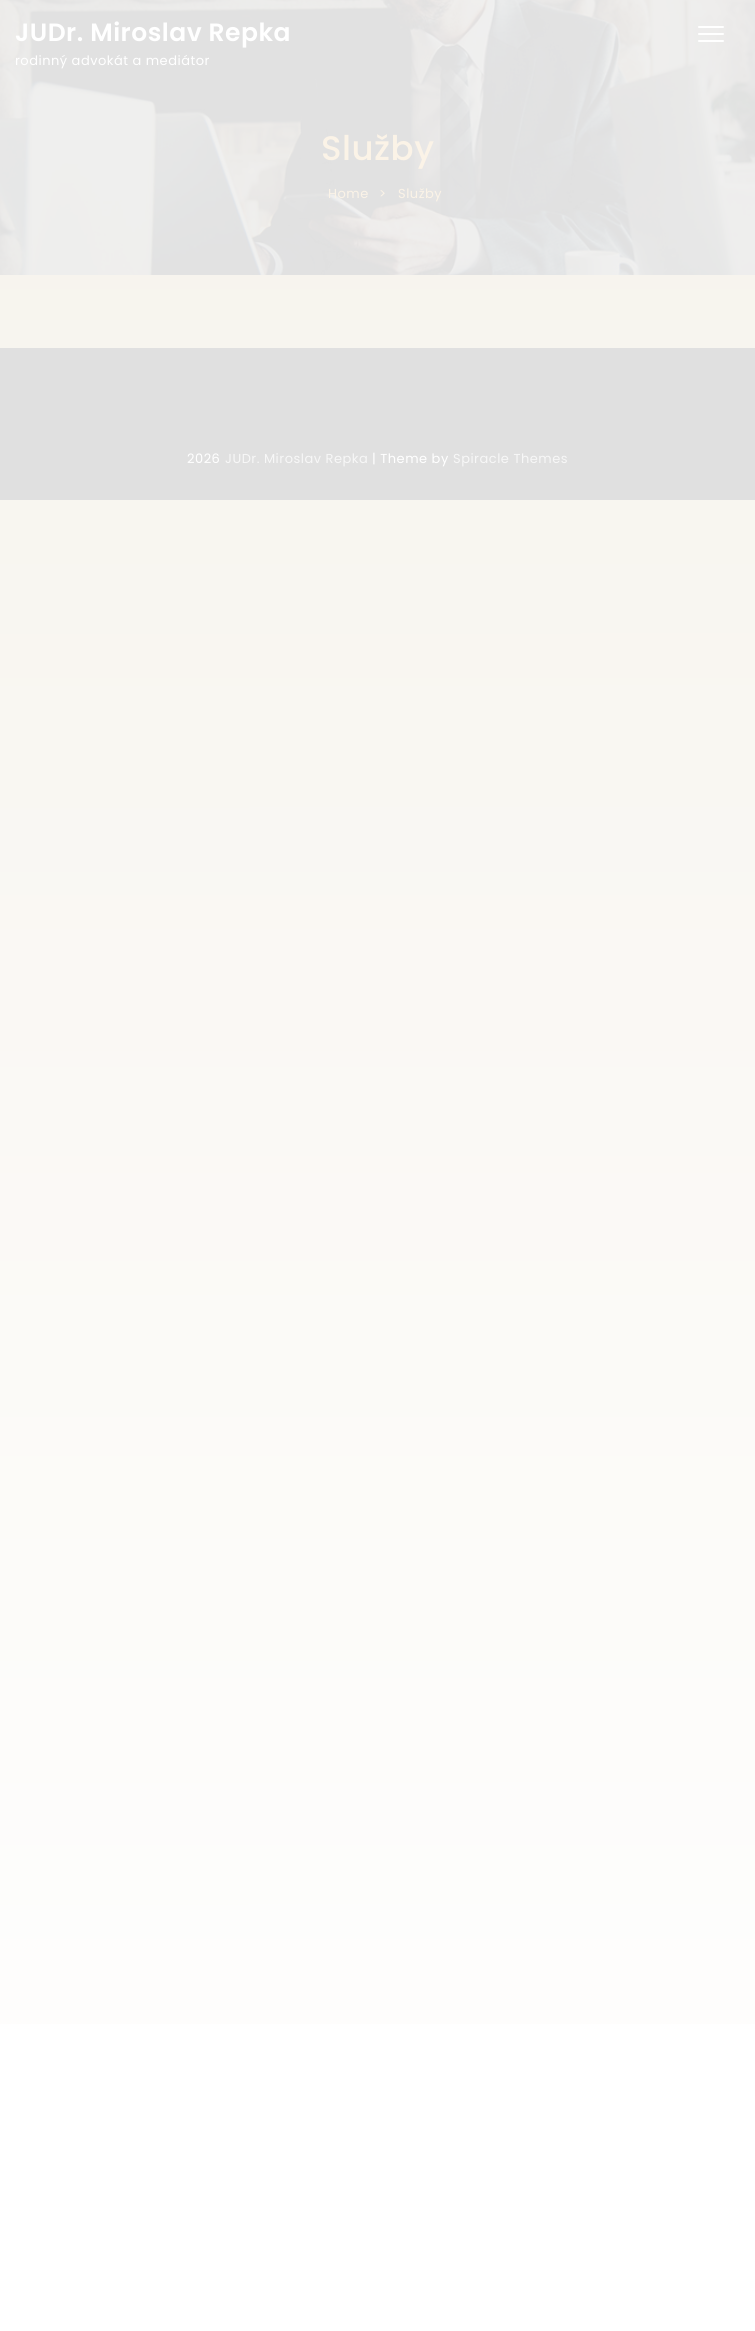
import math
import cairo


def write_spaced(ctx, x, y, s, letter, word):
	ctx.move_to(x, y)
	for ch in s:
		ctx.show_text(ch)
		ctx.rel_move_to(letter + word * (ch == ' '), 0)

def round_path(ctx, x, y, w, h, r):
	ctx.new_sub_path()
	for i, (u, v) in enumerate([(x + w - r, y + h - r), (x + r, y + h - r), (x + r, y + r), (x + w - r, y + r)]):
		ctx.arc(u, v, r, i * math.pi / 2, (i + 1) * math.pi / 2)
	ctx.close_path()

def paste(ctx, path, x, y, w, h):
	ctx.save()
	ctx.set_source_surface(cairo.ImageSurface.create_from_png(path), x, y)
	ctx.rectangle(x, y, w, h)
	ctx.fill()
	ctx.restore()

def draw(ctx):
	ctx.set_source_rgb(1, 1, 1)
	ctx.paint()
	gradient = cairo.LinearGradient(377, 0, 378, 2331)
	gradient.add_color_stop_rgba(0, 0.965, 0.953, 0.925, 1)
	gradient.add_color_stop_rgba(1, 1, 1, 1, 1)
	ctx.set_source(gradient)
	ctx.rectangle(0, 275, 755, 1749)
	ctx.fill()
	paste(ctx, 'media/1.png', 0, 0, 755, 275)
	ctx.select_font_face('Poppins SemiBold')
	ctx.set_font_size(25)
	ctx.set_source_rgb(1, 1, 1)
	write_spaced(ctx, 15, 41, 'JUDr. Miroslav Repka', 0.5, 0)
	ctx.select_font_face('Poppins')
	ctx.set_font_size(13)
	write_spaced(ctx, 15, 65, 'rodinný advokát a mediátor', 0.5, 0)
	round_path(ctx, 698, 26, 26, 2, 1)
	ctx.fill()
	round_path(ctx, 698, 33, 26, 2, 1)
	ctx.fill()
	round_path(ctx, 698, 40, 26, 2, 1)
	ctx.fill()
	ctx.select_font_face('Poppins Medium')
	ctx.set_font_size(34)
	ctx.set_source_rgb(0.984, 0.953, 0.906)
	write_spaced(ctx, 321, 160, 'Služby', 0.5, 0)
	ctx.select_font_face('Poppins')
	ctx.set_font_size(13)
	for x, y, s in [
		(328, 198, 'Home'),
		(379, 198, '>'),
		(398, 198, 'Služby'),
	]:
		write_spaced(ctx, x, y, s, 0.5, 0)
	ctx.set_source_rgb(0.878, 0.878, 0.878)
	ctx.rectangle(0, 348, 755, 152)
	ctx.fill()
	ctx.set_source_rgb(1, 1, 1)
	write_spaced(ctx, 187, 463, '2026', 0.5, 0)
	ctx.set_source_rgb(0.965, 0.965, 0.965)
	write_spaced(ctx, 225, 463, 'JUDr. Miroslav Repka', 0.5, 0)
	ctx.set_source_rgb(1, 1, 1)
	write_spaced(ctx, 372, 463, '| Theme by', 0.5, 0)
	ctx.set_source_rgb(0.965, 0.965, 0.965)
	write_spaced(ctx, 453, 463, 'Spiracle Themes', 0.5, 0)


surface = cairo.ImageSurface(cairo.FORMAT_RGB24, 755, 2331)
ctx = cairo.Context(surface)
options = cairo.FontOptions()
options.set_hint_metrics(cairo.HINT_METRICS_OFF)
options.set_hint_style(cairo.HINT_STYLE_NONE)
ctx.set_font_options(options)
ctx.set_miter_limit(4)
draw(ctx)
surface.write_to_png('image.png')
